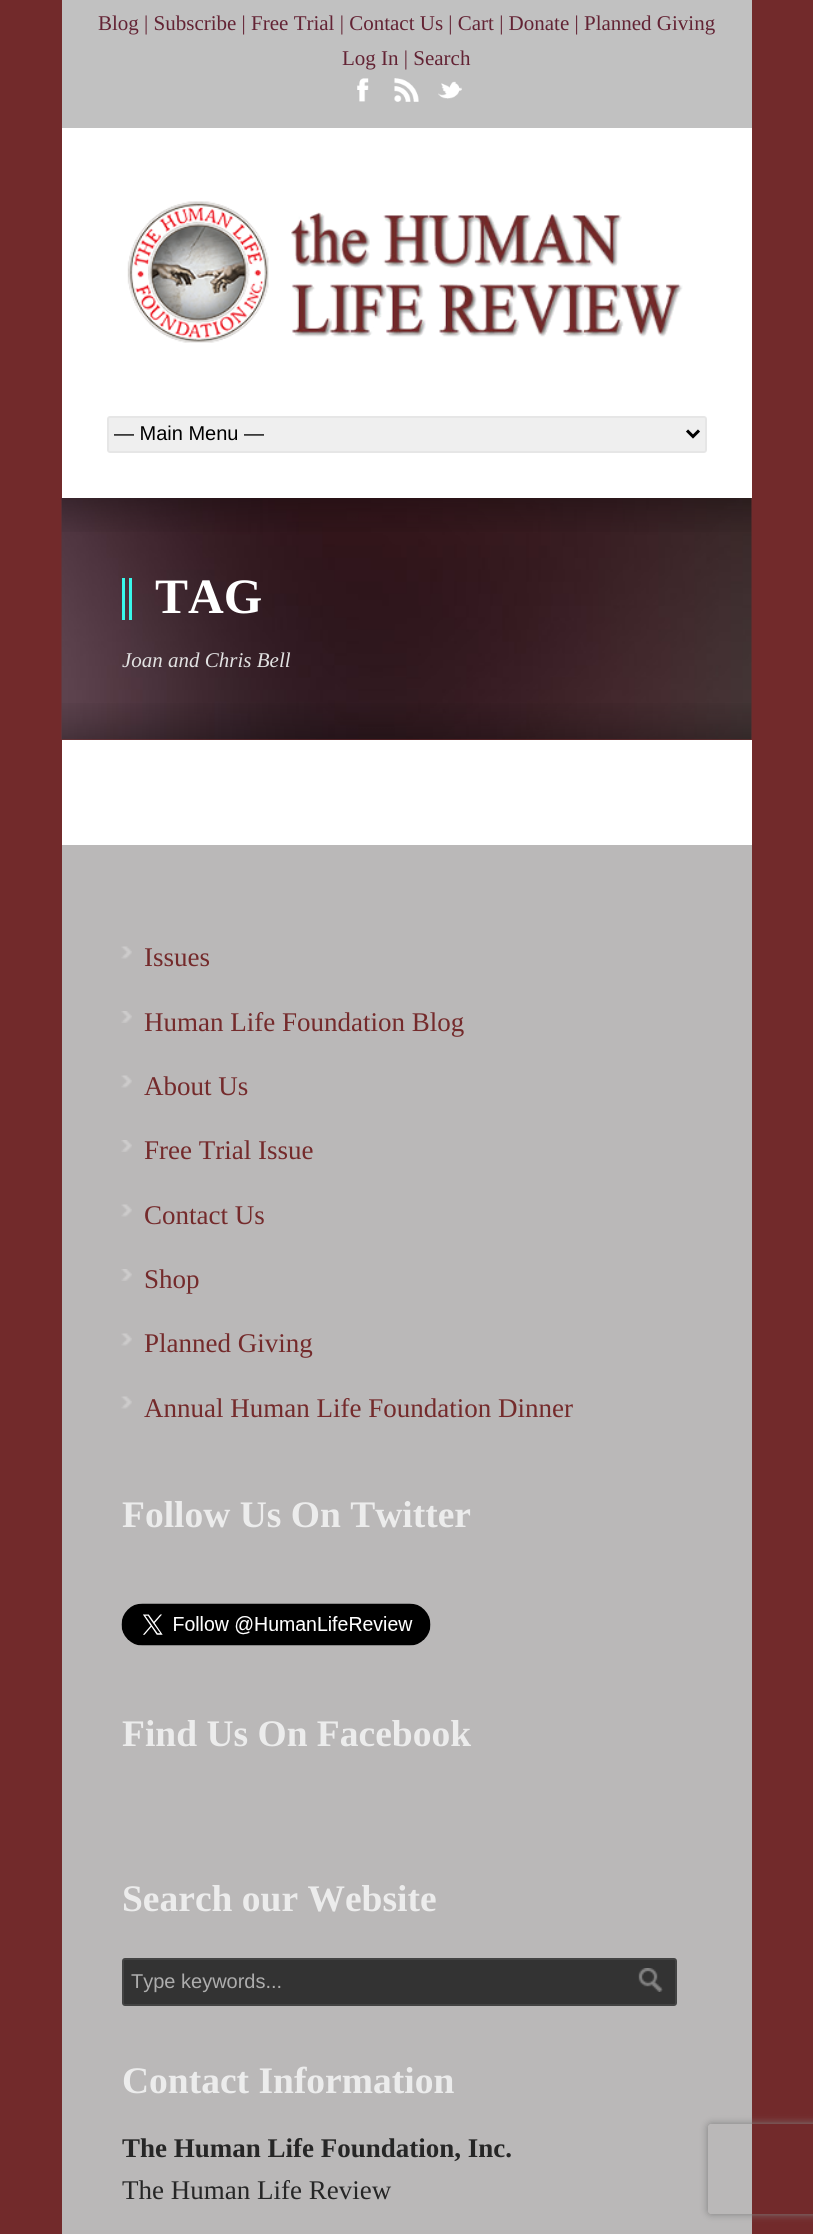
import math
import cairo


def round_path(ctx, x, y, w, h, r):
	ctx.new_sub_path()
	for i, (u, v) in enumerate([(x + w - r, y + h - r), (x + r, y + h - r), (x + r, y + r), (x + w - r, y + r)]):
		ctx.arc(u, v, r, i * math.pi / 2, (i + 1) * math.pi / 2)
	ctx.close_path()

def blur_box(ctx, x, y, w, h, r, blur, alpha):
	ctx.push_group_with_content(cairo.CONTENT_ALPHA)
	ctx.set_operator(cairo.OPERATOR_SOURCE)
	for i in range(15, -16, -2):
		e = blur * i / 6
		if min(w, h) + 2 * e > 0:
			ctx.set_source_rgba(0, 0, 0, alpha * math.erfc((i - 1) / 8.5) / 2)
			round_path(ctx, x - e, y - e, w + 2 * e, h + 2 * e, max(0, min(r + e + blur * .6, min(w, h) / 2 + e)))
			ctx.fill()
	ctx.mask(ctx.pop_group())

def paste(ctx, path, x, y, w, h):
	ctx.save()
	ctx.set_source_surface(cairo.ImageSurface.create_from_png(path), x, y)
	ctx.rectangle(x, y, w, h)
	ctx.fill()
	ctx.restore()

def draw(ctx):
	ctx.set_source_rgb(0.447, 0.165, 0.169)
	ctx.paint()
	ctx.set_source_rgb(0.757, 0.757, 0.757)
	ctx.rectangle(62, 0, 690, 128)
	ctx.fill()
	ctx.select_font_face('Tinos')
	ctx.set_font_size(21)
	ctx.set_source_rgb(0.388, 0.137, 0.204)
	ctx.move_to(98, 30)
	ctx.show_text('Blog | Subscribe | Free Trial | Contact Us | Cart | Donate | Planned Giving')
	ctx.move_to(342, 65)
	ctx.show_text('Log In | Search')
	paste(ctx, 'media/1.png', 357, 78, 12, 24)
	paste(ctx, 'media/2.png', 394, 78, 25, 24)
	paste(ctx, 'media/3.png', 438, 81, 24, 18)
	ctx.set_source_rgb(1, 1, 1)
	ctx.rectangle(62, 128, 690, 370)
	ctx.fill()
	paste(ctx, 'media/4.png', 127, 201, 556, 142)
	ctx.set_source_rgb(0.937, 0.937, 0.937)
	round_path(ctx, 108, 417, 598, 35, 2)
	ctx.fill_preserve()
	ctx.set_source_rgb(0.902, 0.902, 0.902)
	ctx.stroke()
	ctx.new_path()
	ctx.move_to(687, 430.5)
	ctx.line_to(693, 436.5)
	ctx.line_to(699, 430.5)
	ctx.set_source_rgb(0, 0, 0)
	ctx.set_line_width(3)
	ctx.stroke()
	ctx.select_font_face('Liberation Sans')
	ctx.set_font_size(20)
	ctx.move_to(114, 440)
	ctx.show_text('— Main Menu —')
	paste(ctx, 'media/5.png', 61, 498, 691, 242)
	paste(ctx, 'media/6.png', 61, 498, 691, 34)
	ctx.set_source_rgb(0.22, 0.969, 0.918)
	ctx.rectangle(122, 578, 3, 42)
	ctx.fill()
	ctx.rectangle(129, 578, 3, 42)
	ctx.fill()
	ctx.select_font_face('Tinos', cairo.FONT_SLANT_NORMAL, cairo.FONT_WEIGHT_BOLD)
	ctx.set_font_size(49.5)
	ctx.set_source_rgb(1, 1, 1)
	ctx.move_to(155, 613)
	ctx.show_text('TAG')
	ctx.select_font_face('Tinos', cairo.FONT_SLANT_ITALIC)
	ctx.set_font_size(21)
	ctx.set_source_rgb(0.886, 0.886, 0.886)
	ctx.move_to(122, 667)
	ctx.show_text('Joan and Chris Bell')
	paste(ctx, 'media/7.png', 61, 703, 691, 37)
	ctx.set_source_rgb(1, 1, 1)
	ctx.rectangle(62, 740, 690, 105)
	ctx.fill()
	ctx.set_source_rgb(0.729, 0.722, 0.722)
	ctx.rectangle(62, 845, 690, 1389)
	ctx.fill()
	paste(ctx, 'media/8.png', 121, 946, 11, 13)
	ctx.select_font_face('Tinos')
	ctx.set_font_size(27)
	ctx.set_source_rgb(0.455, 0.165, 0.169)
	ctx.move_to(144, 966)
	ctx.show_text('Issues')
	paste(ctx, 'media/9.png', 121, 1011, 11, 12)
	ctx.move_to(144, 1031)
	ctx.show_text('Human Life Foundation Blog')
	paste(ctx, 'media/8.png', 121, 1075, 11, 13)
	ctx.move_to(144, 1095)
	ctx.show_text('About Us')
	paste(ctx, 'media/9.png', 121, 1140, 11, 12)
	ctx.move_to(144, 1159)
	ctx.show_text('Free Trial Issue')
	paste(ctx, 'media/8.png', 121, 1204, 11, 13)
	ctx.move_to(144, 1224)
	ctx.show_text('Contact Us')
	paste(ctx, 'media/9.png', 121, 1269, 11, 12)
	ctx.move_to(144, 1288)
	ctx.show_text('Shop')
	paste(ctx, 'media/8.png', 121, 1333, 11, 13)
	ctx.move_to(144, 1352)
	ctx.show_text('Planned Giving')
	paste(ctx, 'media/8.png', 121, 1396, 11, 13)
	ctx.move_to(144, 1417)
	ctx.show_text('Annual Human Life Foundation Dinner')
	ctx.select_font_face('Tinos', cairo.FONT_SLANT_NORMAL, cairo.FONT_WEIGHT_BOLD)
	ctx.set_font_size(37.5)
	ctx.set_source_rgb(0.925, 0.925, 0.925)
	ctx.move_to(122, 1527)
	ctx.show_text('Follow Us On Twitter')
	paste(ctx, 'media/10.png', 121, 1603, 310, 43)
	ctx.move_to(122, 1746)
	ctx.show_text('Find Us On Facebook')
	ctx.move_to(122, 1911)
	ctx.show_text('Search our Website')
	ctx.set_source_rgb(0.2, 0.2, 0.2)
	round_path(ctx, 123, 1959, 553, 46, 2)
	ctx.fill_preserve()
	ctx.set_source_rgb(0.263, 0.263, 0.263)
	ctx.set_line_width(2)
	ctx.stroke()
	ctx.select_font_face('Liberation Sans')
	ctx.set_font_size(20)
	ctx.set_source_rgb(0.678, 0.678, 0.678)
	ctx.move_to(131, 1988)
	ctx.show_text('Type keywords...')
	paste(ctx, 'media/11.png', 638, 1968, 25, 24)
	ctx.select_font_face('Tinos', cairo.FONT_SLANT_NORMAL, cairo.FONT_WEIGHT_BOLD)
	ctx.set_font_size(37.5)
	ctx.set_source_rgb(0.925, 0.925, 0.925)
	ctx.move_to(122, 2093)
	ctx.show_text('Contact Information')
	ctx.set_font_size(27)
	ctx.set_source_rgb(0.149, 0.149, 0.149)
	ctx.move_to(122, 2157)
	ctx.show_text('The Human Life Foundation, Inc.')
	ctx.select_font_face('Tinos')
	ctx.move_to(122, 2199)
	ctx.show_text('The Human Life Review')
	ctx.save()
	ctx.set_fill_rule(cairo.FILL_RULE_EVEN_ODD)
	ctx.new_path()
	ctx.move_to(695, 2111)
	ctx.line_to(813, 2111)
	ctx.line_to(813, 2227)
	ctx.line_to(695, 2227)
	ctx.close_path()
	ctx.move_to(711, 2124)
	ctx.line_to(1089, 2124)
	ctx.curve_to(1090.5, 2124, 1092, 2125.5, 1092, 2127)
	ctx.line_to(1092, 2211)
	ctx.curve_to(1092, 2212.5, 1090.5, 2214, 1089, 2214)
	ctx.line_to(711, 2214)
	ctx.curve_to(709.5, 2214, 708, 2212.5, 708, 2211)
	ctx.line_to(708, 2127)
	ctx.curve_to(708, 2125.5, 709.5, 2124, 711, 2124)
	ctx.close_path()
	ctx.clip()
	ctx.set_source_rgb(0.502, 0.502, 0.502)
	blur_box(ctx, 708, 2124, 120, 90, 3, 4, 1)
	ctx.restore()


surface = cairo.ImageSurface(cairo.FORMAT_RGB24, 813, 2234)
ctx = cairo.Context(surface)
options = cairo.FontOptions()
options.set_hint_metrics(cairo.HINT_METRICS_OFF)
options.set_hint_style(cairo.HINT_STYLE_NONE)
ctx.set_font_options(options)
ctx.set_miter_limit(4)
draw(ctx)
surface.write_to_png('image.png')
